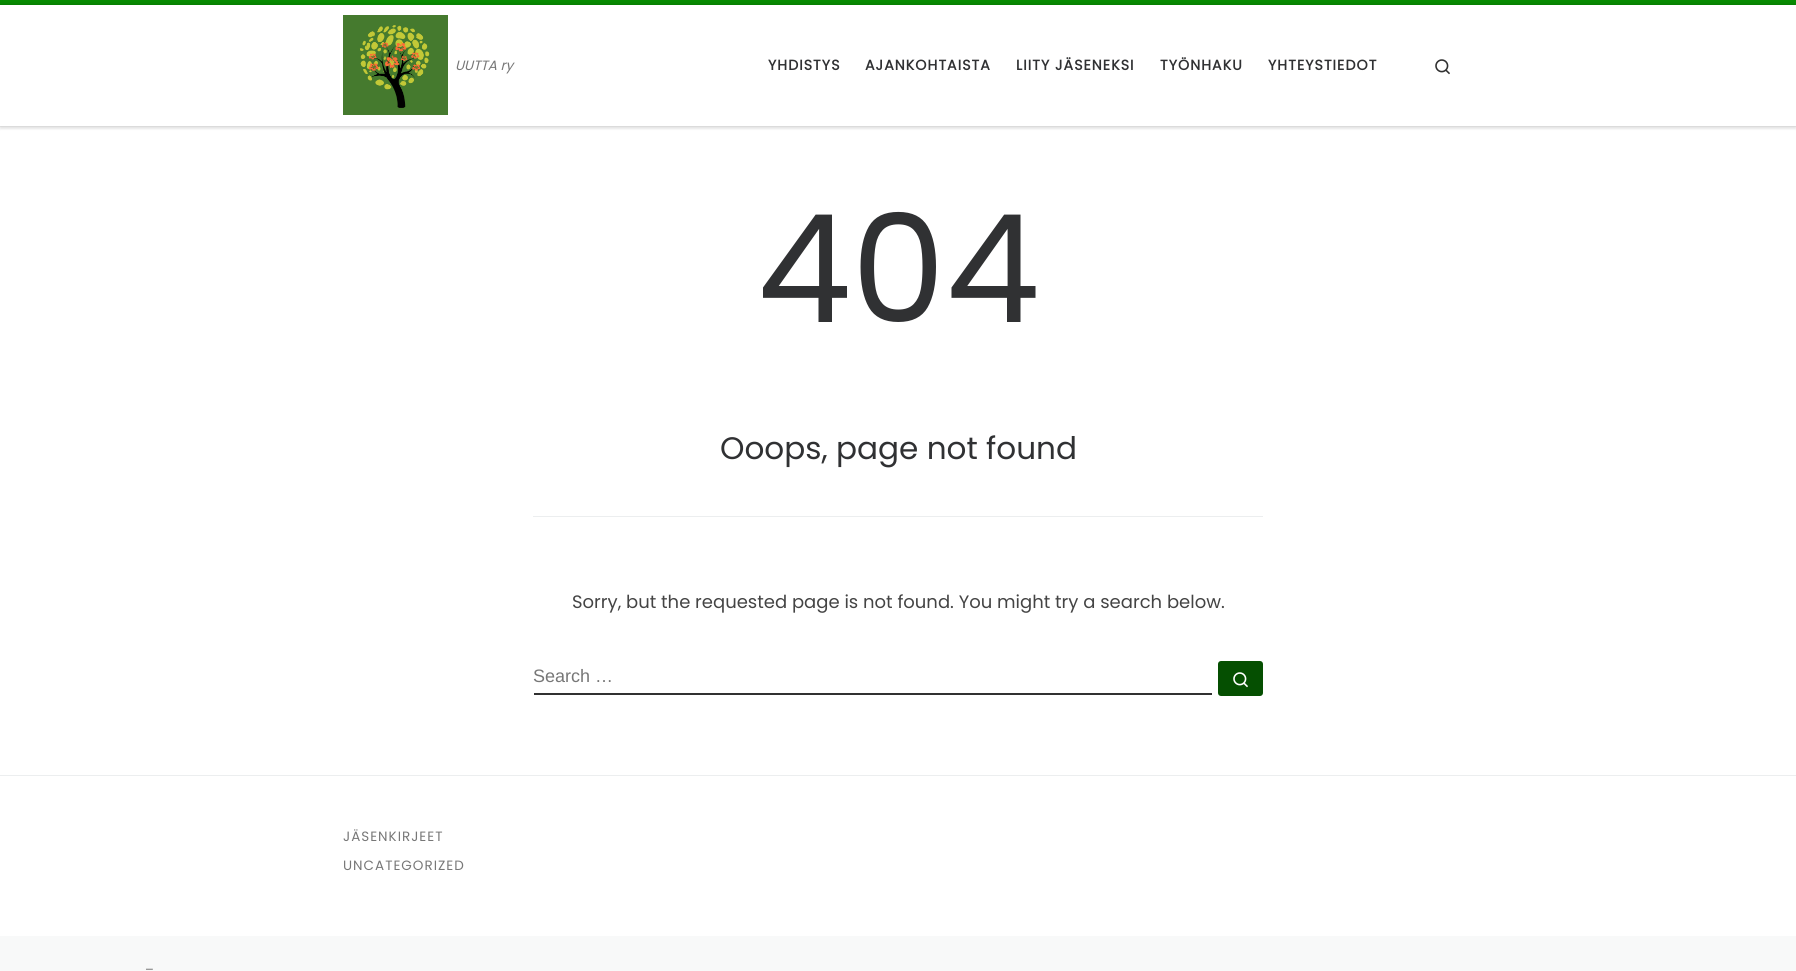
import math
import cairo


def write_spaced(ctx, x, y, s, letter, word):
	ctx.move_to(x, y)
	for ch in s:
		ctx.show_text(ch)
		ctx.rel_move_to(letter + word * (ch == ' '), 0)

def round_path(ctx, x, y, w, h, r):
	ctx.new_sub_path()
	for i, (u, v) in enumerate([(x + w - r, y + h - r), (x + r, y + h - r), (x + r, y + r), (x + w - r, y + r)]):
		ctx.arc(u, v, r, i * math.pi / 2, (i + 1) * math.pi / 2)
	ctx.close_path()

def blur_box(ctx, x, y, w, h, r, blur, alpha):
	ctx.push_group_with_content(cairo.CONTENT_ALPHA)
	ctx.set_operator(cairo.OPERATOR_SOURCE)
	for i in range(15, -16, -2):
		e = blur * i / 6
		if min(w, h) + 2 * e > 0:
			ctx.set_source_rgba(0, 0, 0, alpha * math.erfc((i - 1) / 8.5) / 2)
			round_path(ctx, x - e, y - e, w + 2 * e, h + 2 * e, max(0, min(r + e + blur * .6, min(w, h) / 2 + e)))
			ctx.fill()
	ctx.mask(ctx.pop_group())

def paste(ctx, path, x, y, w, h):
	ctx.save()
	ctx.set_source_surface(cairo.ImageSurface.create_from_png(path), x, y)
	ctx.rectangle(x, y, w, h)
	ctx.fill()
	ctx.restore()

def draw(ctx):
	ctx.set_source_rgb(1, 1, 1)
	ctx.paint()
	ctx.save()
	ctx.rectangle(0, 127, 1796, 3)
	ctx.clip()
	ctx.set_source_rgb(0.4, 0.4, 0.4)
	blur_box(ctx, 0, 2, 1796, 127, 0, 1, 0.08)
	ctx.restore()
	ctx.set_source_rgb(0.031, 0.549, 0.004)
	ctx.rectangle(0, 0, 1796, 5)
	ctx.fill()
	ctx.set_source_rgb(0.937, 0.937, 0.937)
	ctx.rectangle(0, 126, 1796, 1)
	ctx.fill()
	ctx.save()
	ctx.set_fill_rule(cairo.FILL_RULE_EVEN_ODD)
	ctx.new_path()
	ctx.move_to(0, 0)
	ctx.line_to(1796, 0)
	ctx.line_to(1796, 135)
	ctx.line_to(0, 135)
	ctx.close_path()
	ctx.move_to(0, 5)
	ctx.line_to(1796, 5)
	ctx.line_to(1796, 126)
	ctx.line_to(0, 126)
	ctx.close_path()
	ctx.clip()
	ctx.set_source_rgb(0, 0, 0)
	blur_box(ctx, 0, 5, 1796, 121, 0, 2.5, 0.2)
	ctx.restore()
	paste(ctx, 'media/1.png', 343, 15, 105, 100)
	ctx.select_font_face('Poppins', cairo.FONT_SLANT_ITALIC)
	ctx.set_font_size(13.5)
	ctx.set_source_rgb(0.467, 0.467, 0.467)
	ctx.move_to(455, 70)
	ctx.show_text('UUTTA ry')
	ctx.select_font_face('Poppins', cairo.FONT_SLANT_NORMAL, cairo.FONT_WEIGHT_BOLD)
	ctx.set_font_size(14.25)
	ctx.set_source_rgb(0.188, 0.192, 0.2)
	for x, y, s in [
		(768, 70, 'YHDISTYS'),
		(865, 70, 'AJANKOHTAISTA'),
		(1016, 70, 'LIITY JÄSENEKSI'),
		(1160, 70, 'TYÖNHAKU'),
		(1268, 70, 'YHTEYSTIEDOT'),
	]:
		write_spaced(ctx, x, y, s, 1, 0)
	paste(ctx, 'media/2.png', 1435, 59, 15, 16)
	ctx.select_font_face('Poppins')
	ctx.set_font_size(150)
	ctx.move_to(757, 322)
	ctx.show_text('404')
	ctx.set_font_size(31.1)
	ctx.move_to(720, 459)
	ctx.show_text('Ooops, page not found')
	ctx.set_source_rgb(0.925, 0.933, 0.937)
	ctx.rectangle(533, 516, 730, 1)
	ctx.fill()
	ctx.set_font_size(18)
	ctx.set_source_rgb(0.267, 0.267, 0.267)
	ctx.move_to(572, 608)
	ctx.show_text('Sorry, but the requested page is not found. You might try a search below.')
	ctx.set_source_rgb(0.192, 0.192, 0.192)
	ctx.rectangle(534, 693, 678, 2)
	ctx.fill()
	ctx.select_font_face('Liberation Sans')
	ctx.set_source_rgb(0.467, 0.467, 0.467)
	ctx.move_to(533, 682)
	ctx.show_text('Search …')
	ctx.set_source_rgb(0.02, 0.31, 0.004)
	round_path(ctx, 1219, 662, 43, 33, 2)
	ctx.fill_preserve()
	ctx.stroke()
	paste(ctx, 'media/3.png', 1233, 672, 15, 16)
	ctx.set_source_rgb(0.925, 0.933, 0.937)
	ctx.rectangle(0, 775, 1796, 1)
	ctx.fill()
	ctx.select_font_face('Poppins')
	ctx.set_font_size(13.5)
	ctx.set_source_rgb(0.467, 0.467, 0.467)
	write_spaced(ctx, 343, 841, 'JÄSENKIRJEET', 1, 0)
	write_spaced(ctx, 343, 870, 'UNCATEGORIZED', 1, 0)
	ctx.set_source_rgb(0.969, 0.973, 0.976)
	ctx.rectangle(0, 936, 1796, 35)
	ctx.fill()
	ctx.set_font_size(13)
	ctx.set_source_rgb(0.467, 0.467, 0.467)
	write_spaced(ctx, 145, 974, '–', 1, 0)


surface = cairo.ImageSurface(cairo.FORMAT_RGB24, 1796, 971)
ctx = cairo.Context(surface)
options = cairo.FontOptions()
options.set_hint_metrics(cairo.HINT_METRICS_OFF)
options.set_hint_style(cairo.HINT_STYLE_NONE)
ctx.set_font_options(options)
ctx.set_miter_limit(4)
draw(ctx)
surface.write_to_png('image.png')
